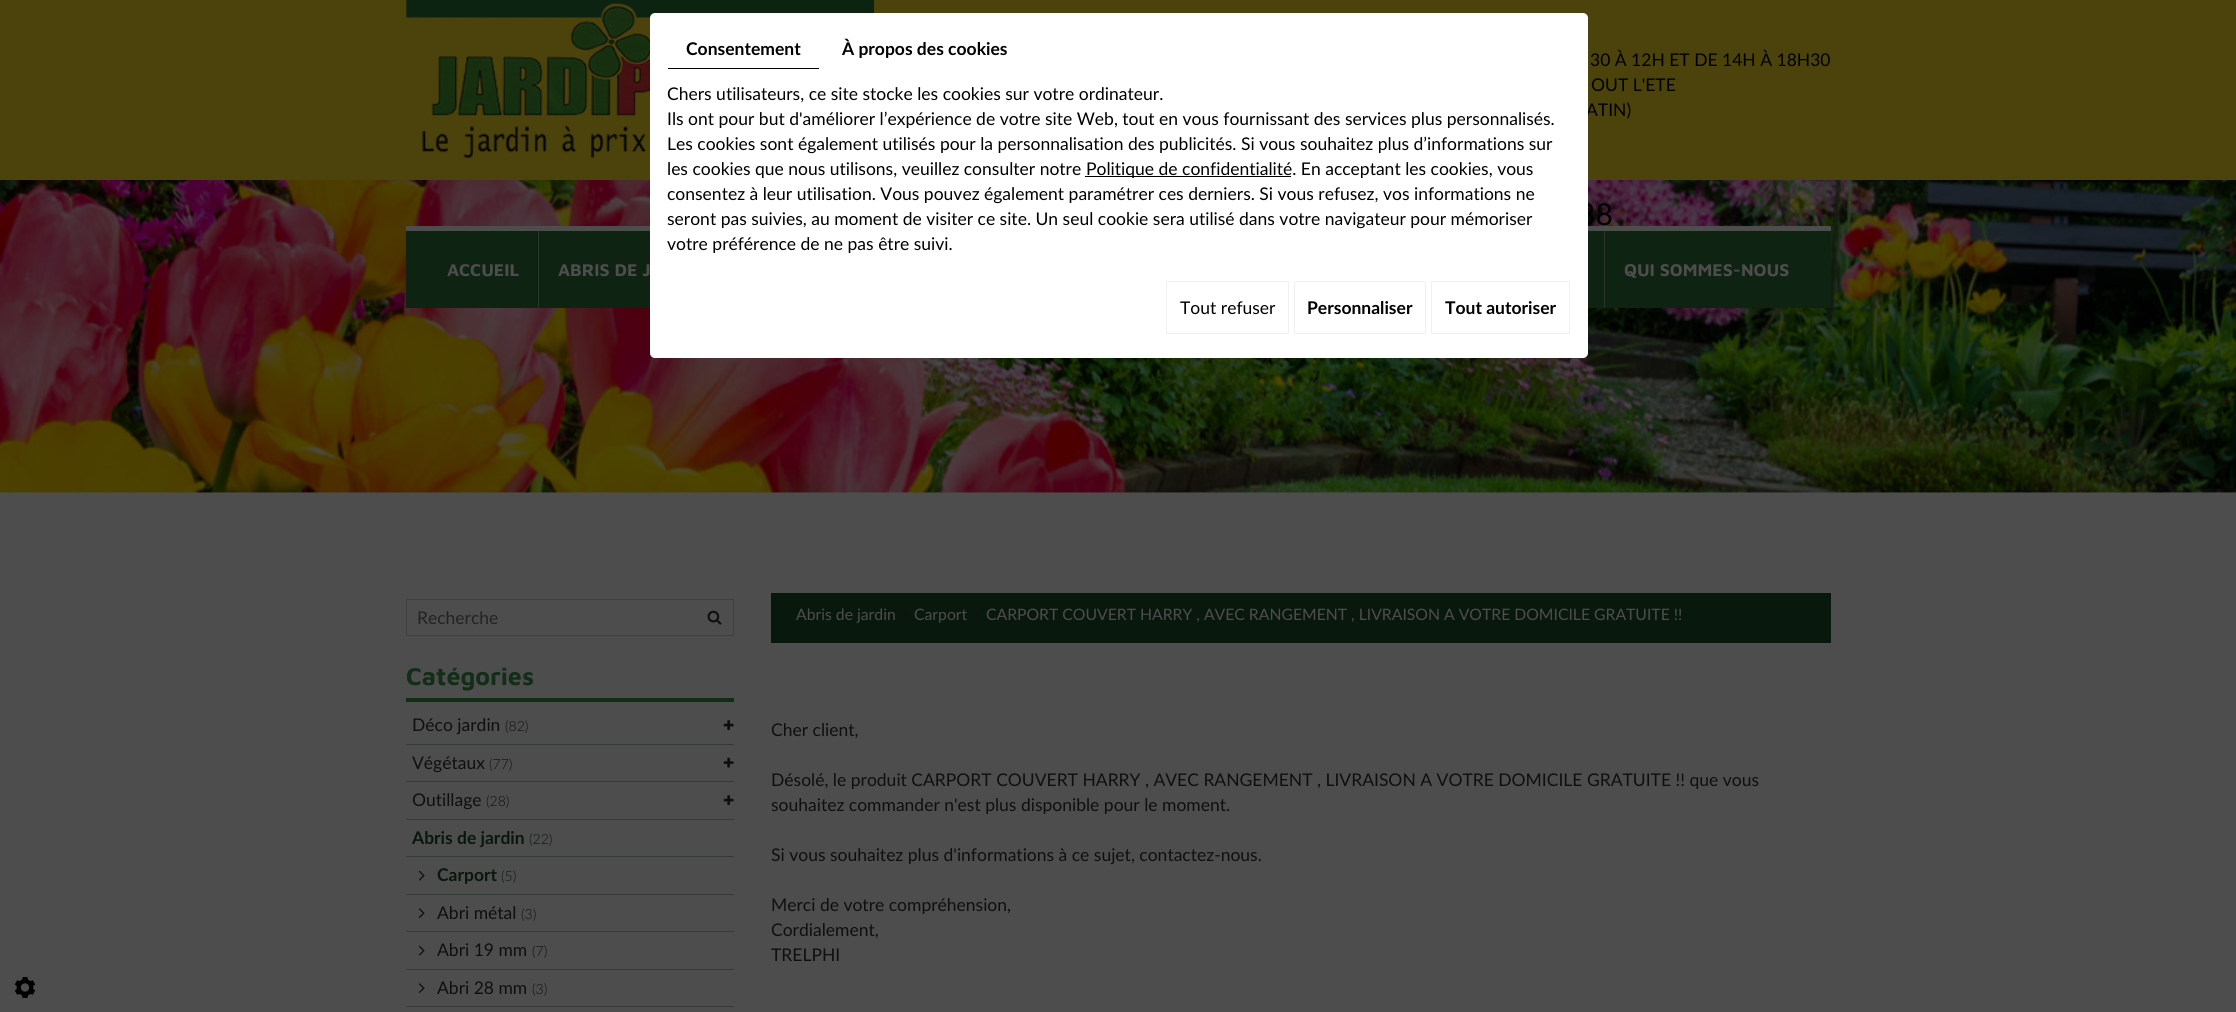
import math
import cairo


def round_path(ctx, x, y, w, h, r):
	ctx.new_sub_path()
	for i, (u, v) in enumerate([(x + w - r, y + h - r), (x + r, y + h - r), (x + r, y + r), (x + w - r, y + r)]):
		ctx.arc(u, v, r, i * math.pi / 2, (i + 1) * math.pi / 2)
	ctx.close_path()

def paste(ctx, path, x, y, w, h):
	ctx.save()
	ctx.set_source_surface(cairo.ImageSurface.create_from_png(path), x, y)
	ctx.rectangle(x, y, w, h)
	ctx.fill()
	ctx.restore()

def draw(ctx):
	ctx.set_source_rgb(0.302, 0.302, 0.302)
	ctx.paint()
	ctx.set_source_rgb(0.294, 0.263, 0.043)
	ctx.rectangle(0, 0, 2236, 180)
	ctx.fill()
	paste(ctx, 'media/2.png', 406, 0, 468, 164)
	ctx.select_font_face('Lato')
	ctx.set_font_size(17.5)
	ctx.set_source_rgb(0, 0, 0)
	ctx.move_to(1586, 116)
	ctx.show_text('ATIN)')
	paste(ctx, 'media/3.png', 0, 180, 2236, 313)
	ctx.set_font_size(30)
	ctx.move_to(1578, 225)
	ctx.show_text('38')
	ctx.set_source_rgb(0.055, 0.137, 0.067)
	ctx.rectangle(406, 231, 1425, 77)
	ctx.fill()
	ctx.set_source_rgb(0.302, 0.302, 0.302)
	ctx.rectangle(406, 226, 1425, 5)
	ctx.fill()
	ctx.set_source_rgb(1, 1, 1)
	round_path(ctx, 650, 13, 938, 345, 5)
	ctx.fill()
	ctx.set_source_rgb(0, 0, 0)
	ctx.rectangle(668, 68, 151, 1)
	ctx.fill()
	ctx.select_font_face('Lato', cairo.FONT_SLANT_NORMAL, cairo.FONT_WEIGHT_BOLD)
	ctx.set_font_size(17.5)
	ctx.move_to(686, 55)
	ctx.show_text('Consentement')
	ctx.move_to(842, 55)
	ctx.show_text('À propos des cookies')
	ctx.select_font_face('Lato')
	for x, y, s in [
		(667, 100, 'Chers utilisateurs, ce site stocke les cookies sur votre ordinateur.'),
		(667, 125, 'Ils ont pour but d\'améliorer l’expérience de votre site Web, tout en vous fournissant des services plus personnalisés.'),
		(667, 150, 'Les cookies sont également utilisés pour la personnalisation des publicités. Si vous souhaitez plus d’informations sur'),
		(667, 175, 'les cookies que nous utilisons, veuillez consulter notre'),
	]:
		ctx.move_to(x, y)
		ctx.show_text(s)
	ctx.rectangle(1085, 176, 206, 1)
	ctx.fill()
	for x, y, s in [
		(1086, 175, 'Politique de confidentialité. En acceptant les cookies, vous'),
		(667, 200, 'consentez à leur utilisation. Vous pouvez également paramétrer ces derniers. Si vous refusez, vos informations ne'),
		(667, 225, 'seront pas suivies, au moment de visiter ce site. Un seul cookie sera utilisé dans votre navigateur pour mémoriser'),
		(667, 250, 'votre préférence de ne pas être suivi.'),
	]:
		ctx.move_to(x, y)
		ctx.show_text(s)
	ctx.rectangle(1166.5, 281.5, 122, 52)
	ctx.set_source_rgb(0.941, 0.941, 0.941)
	ctx.set_line_width(1)
	ctx.stroke()
	ctx.set_source_rgb(0, 0, 0)
	ctx.move_to(1180, 314)
	ctx.show_text('Tout refuser')
	ctx.rectangle(1294.5, 281.5, 131, 52)
	ctx.set_source_rgb(0.941, 0.941, 0.941)
	ctx.stroke()
	ctx.select_font_face('Lato', cairo.FONT_SLANT_NORMAL, cairo.FONT_WEIGHT_BOLD)
	ctx.set_source_rgb(0, 0, 0)
	ctx.move_to(1307, 314)
	ctx.show_text('Personnaliser')
	ctx.rectangle(1431.5, 281.5, 138, 52)
	ctx.set_source_rgb(0.941, 0.941, 0.941)
	ctx.stroke()
	ctx.set_source_rgb(0, 0, 0)
	ctx.move_to(1445, 314)
	ctx.show_text('Tout autoriser')
	paste(ctx, 'media/1.png', 14, 977, 22, 21)
	ctx.select_font_face('Lato')
	ctx.move_to(1590, 66)
	ctx.show_text('30 À 12H ET DE 14H À 18H30')
	ctx.move_to(1591, 91)
	ctx.show_text('OUT L\'ETE')
	ctx.select_font_face('Maven Pro', cairo.FONT_SLANT_NORMAL, cairo.FONT_WEIGHT_BOLD)
	ctx.set_source_rgb(0.302, 0.302, 0.302)
	ctx.move_to(447, 276)
	ctx.show_text('ACCUEIL')
	ctx.set_source_rgb(0.165, 0.212, 0.173)
	ctx.rectangle(538, 231, 1, 77)
	ctx.fill()
	ctx.set_source_rgb(0.302, 0.302, 0.302)
	ctx.move_to(558, 276)
	ctx.show_text('ABRIS DE J')
	ctx.set_source_rgb(0.165, 0.212, 0.173)
	ctx.rectangle(1604, 231, 1, 77)
	ctx.fill()
	ctx.set_source_rgb(0.302, 0.302, 0.302)
	ctx.move_to(1624, 276)
	ctx.show_text('QUI SOMMES-NOUS')
	ctx.rectangle(406.5, 599.5, 327, 36)
	ctx.set_source_rgb(0.251, 0.251, 0.251)
	ctx.stroke()
	ctx.select_font_face('Lato')
	ctx.set_source_rgb(0.137, 0.137, 0.137)
	ctx.move_to(417, 624)
	ctx.show_text('Recherche')
	paste(ctx, 'media/4.png', 707, 610, 15, 15)
	ctx.set_source_rgb(0.071, 0.18, 0.09)
	ctx.rectangle(406, 698, 328, 4)
	ctx.fill()
	ctx.select_font_face('Maven Pro', cairo.FONT_SLANT_NORMAL, cairo.FONT_WEIGHT_BOLD)
	ctx.set_font_size(25)
	ctx.move_to(406, 685)
	ctx.show_text('Catégories')
	ctx.select_font_face('Lato')
	ctx.set_font_size(17.5)
	ctx.set_source_rgb(0.059, 0.059, 0.059)
	ctx.move_to(412, 731)
	ctx.show_text('Déco jardin')
	ctx.select_font_face('Lato Light')
	ctx.set_font_size(14)
	ctx.move_to(505, 731)
	ctx.show_text('(82)')
	paste(ctx, 'media/5.png', 723, 720, 11, 10)
	ctx.set_source_rgb(0.2, 0.235, 0.208)
	ctx.rectangle(406, 744, 328, 1)
	ctx.fill()
	ctx.select_font_face('Lato')
	ctx.set_font_size(17.5)
	ctx.set_source_rgb(0.059, 0.059, 0.059)
	ctx.move_to(412, 769)
	ctx.show_text('Végétaux')
	ctx.select_font_face('Lato Light')
	ctx.set_font_size(14)
	ctx.move_to(489, 769)
	ctx.show_text('(77)')
	paste(ctx, 'media/6.png', 723, 757, 11, 11)
	ctx.set_source_rgb(0.2, 0.235, 0.208)
	ctx.rectangle(406, 781, 328, 1)
	ctx.fill()
	ctx.select_font_face('Lato')
	ctx.set_font_size(17.5)
	ctx.set_source_rgb(0.059, 0.059, 0.059)
	ctx.move_to(412, 806)
	ctx.show_text('Outillage')
	ctx.select_font_face('Lato Light')
	ctx.set_font_size(14)
	ctx.move_to(486, 806)
	ctx.show_text('(28)')
	paste(ctx, 'media/5.png', 723, 795, 11, 10)
	ctx.set_source_rgb(0.2, 0.235, 0.208)
	ctx.rectangle(406, 819, 328, 1)
	ctx.fill()
	ctx.select_font_face('Lato', cairo.FONT_SLANT_NORMAL, cairo.FONT_WEIGHT_BOLD)
	ctx.set_font_size(17.5)
	ctx.set_source_rgb(0.035, 0.094, 0.047)
	ctx.move_to(412, 844)
	ctx.show_text('Abris de jardin')
	ctx.select_font_face('Lato Light')
	ctx.set_font_size(14)
	ctx.move_to(529, 844)
	ctx.show_text('(22)')
	ctx.set_source_rgb(0.2, 0.235, 0.208)
	ctx.rectangle(406, 856, 328, 1)
	ctx.fill()
	paste(ctx, 'media/7.png', 418, 870, 7, 11)
	ctx.select_font_face('Lato', cairo.FONT_SLANT_NORMAL, cairo.FONT_WEIGHT_BOLD)
	ctx.set_font_size(17.5)
	ctx.set_source_rgb(0.035, 0.094, 0.047)
	ctx.move_to(437, 881)
	ctx.show_text('Carport')
	ctx.select_font_face('Lato Light')
	ctx.set_font_size(14)
	ctx.move_to(501, 881)
	ctx.show_text('(5)')
	ctx.set_source_rgb(0.2, 0.235, 0.208)
	ctx.rectangle(406, 894, 328, 1)
	ctx.fill()
	paste(ctx, 'media/8.png', 418, 908, 7, 10)
	ctx.select_font_face('Lato')
	ctx.set_font_size(17.5)
	ctx.set_source_rgb(0.059, 0.059, 0.059)
	ctx.move_to(437, 919)
	ctx.show_text('Abri métal')
	ctx.select_font_face('Lato Light')
	ctx.set_font_size(14)
	ctx.move_to(521, 919)
	ctx.show_text('(3)')
	ctx.set_source_rgb(0.2, 0.235, 0.208)
	ctx.rectangle(406, 931, 328, 1)
	ctx.fill()
	paste(ctx, 'media/7.png', 418, 945, 7, 11)
	ctx.select_font_face('Lato')
	ctx.set_font_size(17.5)
	ctx.set_source_rgb(0.059, 0.059, 0.059)
	ctx.move_to(437, 956)
	ctx.show_text('Abri 19 mm')
	ctx.select_font_face('Lato Light')
	ctx.set_font_size(14)
	ctx.move_to(532, 956)
	ctx.show_text('(7)')
	ctx.set_source_rgb(0.2, 0.235, 0.208)
	ctx.rectangle(406, 969, 328, 1)
	ctx.fill()
	paste(ctx, 'media/8.png', 418, 983, 7, 10)
	ctx.select_font_face('Lato')
	ctx.set_font_size(17.5)
	ctx.set_source_rgb(0.059, 0.059, 0.059)
	ctx.move_to(437, 994)
	ctx.show_text('Abri 28 mm')
	ctx.select_font_face('Lato Light')
	ctx.set_font_size(14)
	ctx.move_to(532, 994)
	ctx.show_text('(3)')
	ctx.set_source_rgb(0.2, 0.235, 0.208)
	ctx.rectangle(406, 1006, 328, 1)
	ctx.fill()
	ctx.set_source_rgb(0.035, 0.094, 0.047)
	ctx.rectangle(771, 593, 1060, 50)
	ctx.fill()
	ctx.select_font_face('Lato')
	ctx.set_font_size(15.75)
	ctx.set_source_rgb(0.302, 0.302, 0.302)
	ctx.move_to(796, 620)
	ctx.show_text('Abris de jardin')
	paste(ctx, 'media/9.png', 902, 611, 6, 9)
	ctx.move_to(914, 620)
	ctx.show_text('Carport')
	paste(ctx, 'media/10.png', 974, 611, 5, 9)
	ctx.move_to(986, 620)
	ctx.show_text('CARPORT COUVERT HARRY , AVEC RANGEMENT , LIVRAISON A VOTRE DOMICILE GRATUITE !!')
	ctx.set_font_size(17.5)
	ctx.set_source_rgb(0.059, 0.059, 0.059)
	for x, y, s in [
		(771, 736, 'Cher client,'),
		(771, 786, 'Désolé, le produit CARPORT COUVERT HARRY , AVEC RANGEMENT , LIVRAISON A VOTRE DOMICILE GRATUITE !! que vous'),
		(771, 811, 'souhaitez commander n\'est plus disponible pour le moment.'),
		(771, 861, 'Si vous souhaitez plus d\'informations à ce sujet, contactez-nous.'),
		(771, 911, 'Merci de votre compréhension,'),
		(771, 936, 'Cordialement,'),
		(771, 961, 'TRELPHI'),
	]:
		ctx.move_to(x, y)
		ctx.show_text(s)


surface = cairo.ImageSurface(cairo.FORMAT_RGB24, 2236, 1012)
ctx = cairo.Context(surface)
options = cairo.FontOptions()
options.set_hint_metrics(cairo.HINT_METRICS_OFF)
options.set_hint_style(cairo.HINT_STYLE_NONE)
ctx.set_font_options(options)
ctx.set_miter_limit(4)
draw(ctx)
surface.write_to_png('image.png')
